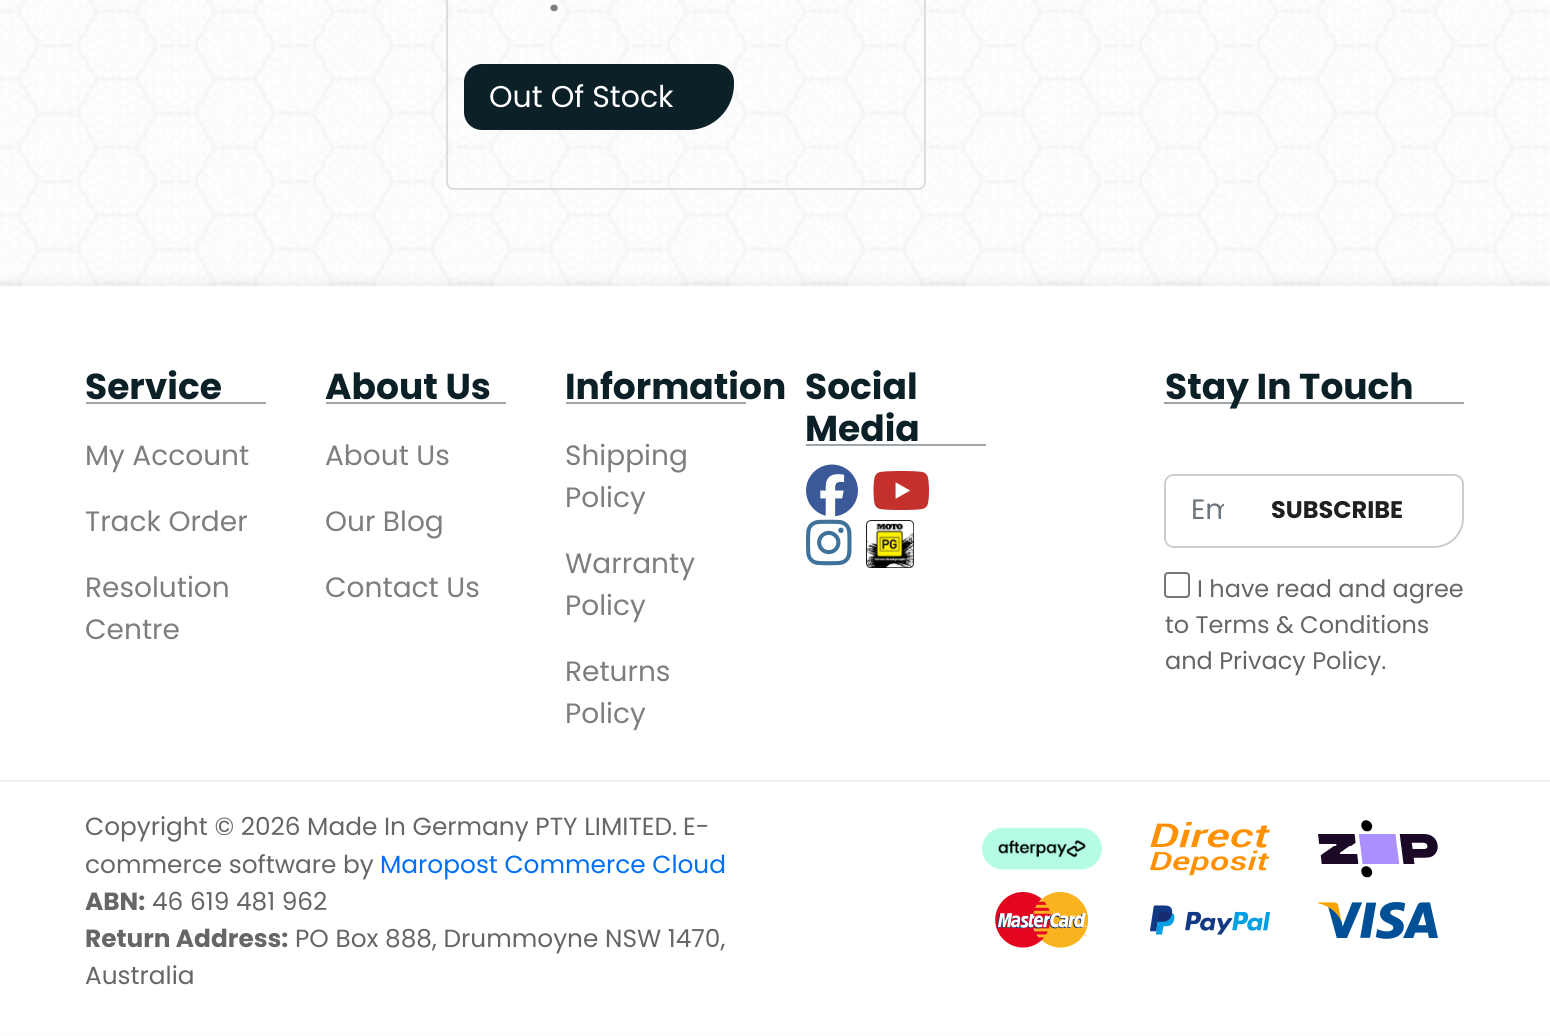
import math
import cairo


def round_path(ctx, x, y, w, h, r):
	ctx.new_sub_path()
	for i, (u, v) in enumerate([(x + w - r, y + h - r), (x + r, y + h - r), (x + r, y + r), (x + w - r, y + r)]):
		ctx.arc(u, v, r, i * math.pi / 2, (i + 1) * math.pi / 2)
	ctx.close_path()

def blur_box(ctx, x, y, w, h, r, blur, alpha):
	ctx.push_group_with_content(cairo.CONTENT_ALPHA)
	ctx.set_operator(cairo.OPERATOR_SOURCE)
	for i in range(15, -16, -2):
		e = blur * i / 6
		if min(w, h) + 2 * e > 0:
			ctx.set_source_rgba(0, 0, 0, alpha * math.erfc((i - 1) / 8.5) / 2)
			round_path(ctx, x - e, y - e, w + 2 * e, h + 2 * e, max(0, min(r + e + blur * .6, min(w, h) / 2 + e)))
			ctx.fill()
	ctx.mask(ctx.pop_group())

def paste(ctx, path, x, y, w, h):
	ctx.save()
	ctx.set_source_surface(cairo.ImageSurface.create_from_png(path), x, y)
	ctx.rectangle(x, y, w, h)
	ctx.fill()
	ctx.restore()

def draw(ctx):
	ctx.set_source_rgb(1, 1, 1)
	ctx.paint()
	paste(ctx, 'media/1.png', 0, 0, 1550, 286)
	round_path(ctx, 447, -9, 478, 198, 7)
	ctx.set_source_rgb(0.867, 0.867, 0.867)
	ctx.stroke()
	ctx.select_font_face('Poppins', cairo.FONT_SLANT_NORMAL, cairo.FONT_WEIGHT_BOLD)
	ctx.set_font_size(36)
	ctx.set_source_rgb(0.494, 0.494, 0.494)
	ctx.move_to(549, 11)
	ctx.show_text('.')
	ctx.set_source_rgb(0.047, 0.125, 0.153)
	ctx.new_path()
	ctx.move_to(482, 64)
	ctx.line_to(716, 64)
	ctx.curve_to(726, 64, 734, 72, 734, 82)
	ctx.line_to(734, 84)
	ctx.curve_to(734, 109.5, 713.5, 130, 688, 130)
	ctx.line_to(482, 130)
	ctx.curve_to(472, 130, 464, 122, 464, 112)
	ctx.line_to(464, 82)
	ctx.curve_to(464, 72, 472, 64, 482, 64)
	ctx.close_path()
	ctx.fill()
	ctx.select_font_face('Poppins')
	ctx.set_font_size(30)
	ctx.set_source_rgb(1, 1, 1)
	ctx.move_to(489, 107)
	ctx.show_text('Out Of Stock')
	ctx.set_source_rgb(0, 0, 0)
	blur_box(ctx, 0, 294, 1550, 720, 0, 10, 0.25)
	ctx.set_source_rgb(1, 1, 1)
	ctx.rectangle(0, 286, 1550, 745)
	ctx.fill()
	ctx.select_font_face('Poppins', cairo.FONT_SLANT_NORMAL, cairo.FONT_WEIGHT_BOLD)
	ctx.set_font_size(36)
	ctx.set_source_rgb(0.047, 0.125, 0.153)
	ctx.move_to(85, 399)
	ctx.show_text('Service')
	ctx.set_source_rgb(0.62, 0.651, 0.663)
	ctx.rectangle(86, 402, 180, 2)
	ctx.fill()
	ctx.select_font_face('Poppins')
	ctx.set_font_size(28)
	ctx.set_source_rgb(0.494, 0.494, 0.494)
	for x, y, s in [
		(85, 465, 'My Account'),
		(85, 531, 'Track Order'),
		(85, 597, 'Resolution'),
		(85, 639, 'Centre'),
	]:
		ctx.move_to(x, y)
		ctx.show_text(s)
	ctx.select_font_face('Poppins', cairo.FONT_SLANT_NORMAL, cairo.FONT_WEIGHT_BOLD)
	ctx.set_font_size(36)
	ctx.set_source_rgb(0.047, 0.125, 0.153)
	ctx.move_to(325, 399)
	ctx.show_text('About Us')
	ctx.set_source_rgb(0.62, 0.651, 0.663)
	ctx.rectangle(326, 402, 180, 2)
	ctx.fill()
	ctx.select_font_face('Poppins')
	ctx.set_font_size(28)
	ctx.set_source_rgb(0.494, 0.494, 0.494)
	for x, y, s in [
		(325, 465, 'About Us'),
		(325, 531, 'Our Blog'),
		(325, 597, 'Contact Us'),
	]:
		ctx.move_to(x, y)
		ctx.show_text(s)
	ctx.select_font_face('Poppins', cairo.FONT_SLANT_NORMAL, cairo.FONT_WEIGHT_BOLD)
	ctx.set_font_size(36)
	ctx.set_source_rgb(0.047, 0.125, 0.153)
	ctx.move_to(565, 399)
	ctx.show_text('Information')
	ctx.set_source_rgb(0.62, 0.651, 0.663)
	ctx.rectangle(566, 402, 180, 2)
	ctx.fill()
	ctx.select_font_face('Poppins')
	ctx.set_font_size(28)
	ctx.set_source_rgb(0.494, 0.494, 0.494)
	for x, y, s in [
		(565, 465, 'Shipping'),
		(565, 507, 'Policy'),
		(565, 573, 'Warranty'),
		(565, 615, 'Policy'),
		(565, 681, 'Returns'),
		(565, 723, 'Policy'),
	]:
		ctx.move_to(x, y)
		ctx.show_text(s)
	ctx.select_font_face('Poppins', cairo.FONT_SLANT_NORMAL, cairo.FONT_WEIGHT_BOLD)
	ctx.set_font_size(36)
	ctx.set_source_rgb(0.047, 0.125, 0.153)
	ctx.move_to(805, 399)
	ctx.show_text('Social')
	ctx.move_to(805, 441)
	ctx.show_text('Media')
	ctx.set_source_rgb(0.62, 0.651, 0.663)
	ctx.rectangle(806, 444, 180, 2)
	ctx.fill()
	paste(ctx, 'media/2.png', 806, 464, 52, 53)
	paste(ctx, 'media/3.png', 873, 471, 56, 39)
	paste(ctx, 'media/4.png', 806, 519, 46, 47)
	paste(ctx, 'media/5.png', 866, 520, 48, 48)
	ctx.set_source_rgb(0.047, 0.125, 0.153)
	ctx.move_to(1165, 399)
	ctx.show_text('Stay In Touch')
	ctx.set_source_rgba(0.047, 0.125, 0.153, 0.4)
	ctx.rectangle(1164, 402, 300, 2)
	ctx.fill()
	ctx.new_path()
	ctx.move_to(1174, 475)
	ctx.line_to(1454, 475)
	ctx.curve_to(1459, 475, 1463, 479, 1463, 484)
	ctx.line_to(1463, 518)
	ctx.curve_to(1463, 534, 1450, 547, 1434, 547)
	ctx.line_to(1174, 547)
	ctx.curve_to(1169, 547, 1165, 543, 1165, 538)
	ctx.line_to(1165, 484)
	ctx.curve_to(1165, 479, 1169, 475, 1174, 475)
	ctx.close_path()
	ctx.set_source_rgb(0.8, 0.8, 0.8)
	ctx.stroke()
	ctx.set_source_rgb(1, 1, 1)
	ctx.new_path()
	ctx.move_to(1174, 476)
	ctx.line_to(1248, 476)
	ctx.line_to(1248, 546)
	ctx.line_to(1174, 546)
	ctx.curve_to(1169.5, 546, 1166, 542.5, 1166, 538)
	ctx.line_to(1166, 484)
	ctx.curve_to(1166, 479.5, 1169.5, 476, 1174, 476)
	ctx.close_path()
	ctx.fill()
	ctx.save()
	ctx.rectangle(1190, 490, 34, 42)
	ctx.clip()
	ctx.select_font_face('Poppins')
	ctx.set_font_size(28)
	ctx.set_source_rgb(0.424, 0.459, 0.49)
	ctx.move_to(1191, 519)
	ctx.show_text('Em')
	ctx.restore()
	ctx.set_font_size(24)
	ctx.set_source_rgb(0.125, 0.125, 0.125)
	ctx.move_to(1271, 518)
	ctx.show_text('SUBSCRIBE')
	round_path(ctx, 1165, 573, 24, 24, 3)
	ctx.set_source_rgb(0.463, 0.463, 0.463)
	ctx.stroke()
	ctx.select_font_face('Poppins')
	ctx.set_source_rgb(0.4, 0.4, 0.4)
	for x, y, s in [
		(1197, 597, 'I have read and agree'),
		(1165, 633, 'to Terms & Conditions'),
		(1165, 669, 'and Privacy Policy.'),
	]:
		ctx.move_to(x, y)
		ctx.show_text(s)
	ctx.set_source_rgb(0.949, 0.949, 0.949)
	ctx.rectangle(0, 780, 1550, 2)
	ctx.fill()
	ctx.set_font_size(24.8)
	ctx.set_source_rgb(0.4, 0.4, 0.4)
	for x, y, s in [
		(85, 835, 'Copyright © 2026 Made In Germany PTY LIMITED.'),
		(683, 835, 'E-'),
		(85, 873, 'commerce software by'),
	]:
		ctx.move_to(x, y)
		ctx.show_text(s)
	ctx.set_source_rgb(0, 0.435, 0.961)
	ctx.move_to(380, 873)
	ctx.show_text('Maropost Commerce Cloud')
	ctx.select_font_face('Poppins', cairo.FONT_SLANT_NORMAL, cairo.FONT_WEIGHT_BOLD)
	ctx.set_source_rgb(0.4, 0.4, 0.4)
	ctx.move_to(85, 910)
	ctx.show_text('ABN:')
	ctx.select_font_face('Poppins')
	ctx.move_to(152, 910)
	ctx.show_text('46 619 481 962')
	ctx.select_font_face('Poppins', cairo.FONT_SLANT_NORMAL, cairo.FONT_WEIGHT_BOLD)
	ctx.move_to(85, 947)
	ctx.show_text('Return Address:')
	ctx.select_font_face('Poppins')
	ctx.move_to(295, 947)
	ctx.show_text('PO Box 888, Drummoyne NSW 1470,')
	ctx.move_to(85, 984)
	ctx.show_text('Australia')
	paste(ctx, 'media/6.png', 982, 827, 120, 43)
	paste(ctx, 'media/7.png', 1150, 822, 120, 54)
	paste(ctx, 'media/8.png', 1318, 820, 120, 58)
	paste(ctx, 'media/9.png', 995, 892, 94, 56)
	paste(ctx, 'media/10.png', 1150, 905, 120, 30)
	paste(ctx, 'media/11.png', 1318, 902, 120, 37)


surface = cairo.ImageSurface(cairo.FORMAT_RGB24, 1550, 1036)
ctx = cairo.Context(surface)
options = cairo.FontOptions()
options.set_hint_metrics(cairo.HINT_METRICS_OFF)
options.set_hint_style(cairo.HINT_STYLE_NONE)
ctx.set_font_options(options)
ctx.set_miter_limit(4)
draw(ctx)
surface.write_to_png('image.png')
